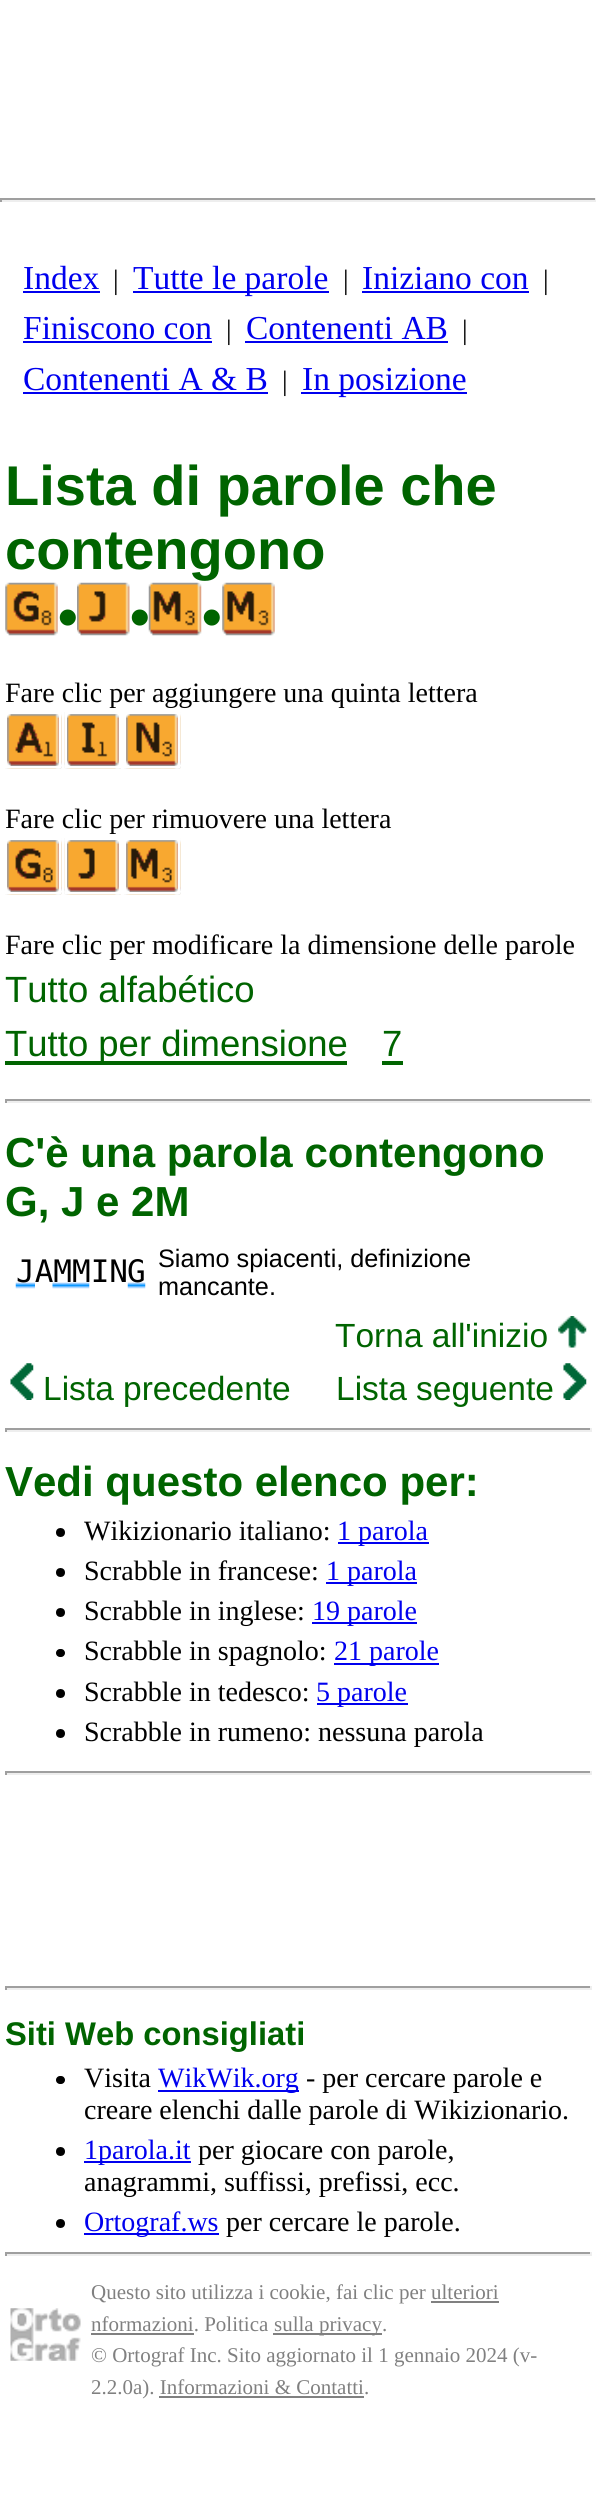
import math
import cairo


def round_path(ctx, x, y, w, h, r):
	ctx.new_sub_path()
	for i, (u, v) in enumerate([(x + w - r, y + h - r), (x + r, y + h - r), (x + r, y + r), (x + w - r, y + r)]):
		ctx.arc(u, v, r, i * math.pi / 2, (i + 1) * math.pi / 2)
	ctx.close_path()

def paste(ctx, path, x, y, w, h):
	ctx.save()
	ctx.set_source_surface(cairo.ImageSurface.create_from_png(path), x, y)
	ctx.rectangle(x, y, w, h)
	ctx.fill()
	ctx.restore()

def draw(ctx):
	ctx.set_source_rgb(1, 1, 1)
	ctx.paint()
	ctx.set_source_rgb(0.624, 0.624, 0.624)
	ctx.rectangle(0, 198, 596, 2)
	ctx.fill()
	ctx.set_source_rgb(0.933, 0.933, 0.933)
	ctx.rectangle(595, 198, 1, 4)
	ctx.rectangle(0, 200, 596, 2)
	ctx.fill()
	ctx.set_source_rgb(0.624, 0.624, 0.624)
	ctx.rectangle(0, 198, 2, 4)
	ctx.fill()
	ctx.select_font_face('Liberation Serif')
	ctx.set_font_size(33.5)
	ctx.set_source_rgb(0, 0, 0.933)
	ctx.move_to(23, 289)
	ctx.show_text('Index')
	ctx.rectangle(23, 291, 77, 2)
	ctx.fill()
	ctx.set_font_size(28)
	ctx.set_source_rgb(0, 0, 0)
	ctx.move_to(113, 289)
	ctx.show_text('|')
	ctx.set_source_rgb(0, 0, 0.933)
	ctx.rectangle(133, 291, 196, 2)
	ctx.fill()
	ctx.set_font_size(33.5)
	ctx.move_to(133, 289)
	ctx.show_text('Tutte le parole')
	ctx.set_font_size(28)
	ctx.set_source_rgb(0, 0, 0)
	ctx.move_to(343, 289)
	ctx.show_text('|')
	ctx.set_font_size(33.5)
	ctx.set_source_rgb(0, 0, 0.933)
	ctx.move_to(362, 289)
	ctx.show_text('Iniziano con')
	ctx.rectangle(362, 291, 167, 2)
	ctx.fill()
	ctx.set_font_size(28)
	ctx.set_source_rgb(0, 0, 0)
	ctx.move_to(543, 289)
	ctx.show_text('|')
	ctx.set_font_size(33.5)
	ctx.set_source_rgb(0, 0, 0.933)
	ctx.move_to(23, 339)
	ctx.show_text('Finiscono con')
	ctx.rectangle(23, 341, 189, 2)
	ctx.fill()
	ctx.set_font_size(28)
	ctx.set_source_rgb(0, 0, 0)
	ctx.move_to(226, 339)
	ctx.show_text('|')
	ctx.set_font_size(33.5)
	ctx.set_source_rgb(0, 0, 0.933)
	ctx.move_to(246, 339)
	ctx.show_text('Contenenti AB')
	ctx.rectangle(245, 341, 203, 2)
	ctx.fill()
	ctx.set_font_size(28)
	ctx.set_source_rgb(0, 0, 0)
	ctx.move_to(462, 339)
	ctx.show_text('|')
	ctx.set_font_size(33.5)
	ctx.set_source_rgb(0, 0, 0.933)
	ctx.move_to(23, 390)
	ctx.show_text('Contenenti A & B')
	ctx.rectangle(23, 392, 245, 2)
	ctx.fill()
	ctx.set_font_size(28)
	ctx.set_source_rgb(0, 0, 0)
	ctx.move_to(282, 390)
	ctx.show_text('|')
	ctx.set_source_rgb(0, 0, 0.933)
	ctx.rectangle(301, 392, 166, 2)
	ctx.fill()
	ctx.set_font_size(33.5)
	ctx.move_to(302, 390)
	ctx.show_text('In posizione')
	ctx.select_font_face('Liberation Sans', cairo.FONT_SLANT_NORMAL, cairo.FONT_WEIGHT_BOLD)
	ctx.set_font_size(56)
	ctx.set_source_rgb(0, 0.392, 0)
	ctx.move_to(5, 505)
	ctx.show_text('Lista di parole che')
	ctx.move_to(5, 569)
	ctx.show_text('contengono')
	paste(ctx, 'media/1.png', 5, 582, 53, 54)
	ctx.move_to(58, 636)
	ctx.show_text('•')
	paste(ctx, 'media/2.png', 77, 582, 53, 54)
	ctx.move_to(130, 636)
	ctx.show_text('•')
	paste(ctx, 'media/3.png', 148, 582, 54, 54)
	ctx.move_to(202, 636)
	ctx.show_text('•')
	paste(ctx, 'media/4.png', 222, 582, 53, 54)
	ctx.select_font_face('Liberation Serif')
	ctx.set_font_size(28)
	ctx.set_source_rgb(0, 0, 0)
	ctx.move_to(5, 702)
	ctx.show_text('Fare clic per aggiungere una quinta lettera')
	paste(ctx, 'media/5.png', 5, 712, 57, 57)
	ctx.rectangle(6, 713, 54, 54)
	ctx.set_source_rgb(1, 1, 1)
	ctx.stroke()
	paste(ctx, 'media/6.png', 64, 712, 57, 57)
	ctx.rectangle(66, 713, 54, 54)
	ctx.stroke()
	paste(ctx, 'media/7.png', 124, 712, 57, 57)
	ctx.rectangle(125, 713, 54, 54)
	ctx.stroke()
	ctx.set_source_rgb(0, 0, 0)
	ctx.move_to(5, 828)
	ctx.show_text('Fare clic per rimuovere una lettera')
	paste(ctx, 'media/8.png', 5, 838, 57, 57)
	ctx.rectangle(6, 839, 54, 54)
	ctx.set_source_rgb(1, 1, 1)
	ctx.stroke()
	paste(ctx, 'media/9.png', 64, 838, 57, 57)
	ctx.rectangle(66, 839, 54, 54)
	ctx.stroke()
	paste(ctx, 'media/10.png', 124, 838, 57, 57)
	ctx.rectangle(125, 839, 54, 54)
	ctx.stroke()
	ctx.set_source_rgb(0, 0, 0)
	ctx.move_to(5, 954)
	ctx.show_text('Fare clic per modificare la dimensione delle parole')
	ctx.select_font_face('Liberation Sans')
	ctx.set_font_size(36.5)
	ctx.set_source_rgb(0, 0.392, 0)
	ctx.move_to(5, 1002)
	ctx.show_text('Tutto alfabético')
	ctx.rectangle(5, 1061, 342, 4)
	ctx.fill()
	ctx.move_to(5, 1056)
	ctx.show_text('Tutto per dimensione')
	ctx.move_to(382, 1056)
	ctx.show_text('7')
	ctx.rectangle(382, 1061, 21, 4)
	ctx.fill()
	ctx.set_source_rgb(0.624, 0.624, 0.624)
	ctx.rectangle(5, 1099, 587, 2)
	ctx.fill()
	ctx.set_source_rgb(0.933, 0.933, 0.933)
	ctx.rectangle(590, 1099, 2, 4)
	ctx.rectangle(5, 1101, 587, 2)
	ctx.fill()
	ctx.set_source_rgb(0.624, 0.624, 0.624)
	ctx.rectangle(5, 1099, 2, 4)
	ctx.fill()
	ctx.select_font_face('Liberation Sans', cairo.FONT_SLANT_NORMAL, cairo.FONT_WEIGHT_BOLD)
	ctx.set_font_size(42)
	ctx.set_source_rgb(0, 0.392, 0)
	ctx.move_to(5, 1167)
	ctx.show_text('C\'è una parola contengono')
	ctx.move_to(5, 1216)
	ctx.show_text('G, J e 2M')
	paste(ctx, 'media/11.png', 15, 1282, 20, 7)
	ctx.select_font_face('DejaVu Sans Mono')
	ctx.set_font_size(31)
	ctx.set_source_rgb(0, 0, 0)
	ctx.move_to(16, 1282)
	ctx.show_text('JAMMIN')
	paste(ctx, 'media/13.png', 127, 1282, 19, 7)
	ctx.move_to(127, 1282)
	ctx.show_text('G')
	paste(ctx, 'media/12.png', 52, 1282, 38, 7)
	ctx.select_font_face('Liberation Sans')
	ctx.set_font_size(25.25)
	ctx.move_to(158, 1267)
	ctx.show_text('Siamo spiacenti, definizione')
	ctx.move_to(158, 1295)
	ctx.show_text('mancante.')
	ctx.set_font_size(33.5)
	ctx.set_source_rgb(0, 0.392, 0)
	ctx.move_to(335, 1347)
	ctx.show_text('Torna all\'inizio')
	paste(ctx, 'media/14.png', 558, 1316, 29, 32)
	paste(ctx, 'media/15.png', 10, 1363, 24, 37)
	ctx.move_to(43, 1400)
	ctx.show_text('Lista precedente')
	ctx.move_to(336, 1400)
	ctx.show_text('Lista seguente')
	paste(ctx, 'media/16.png', 563, 1363, 24, 37)
	ctx.set_source_rgb(0.624, 0.624, 0.624)
	ctx.rectangle(5, 1428, 587, 2)
	ctx.fill()
	ctx.set_source_rgb(0.933, 0.933, 0.933)
	ctx.rectangle(590, 1428, 2, 4)
	ctx.rectangle(5, 1430, 587, 2)
	ctx.fill()
	ctx.set_source_rgb(0.624, 0.624, 0.624)
	ctx.rectangle(5, 1428, 2, 4)
	ctx.fill()
	ctx.select_font_face('Liberation Sans', cairo.FONT_SLANT_NORMAL, cairo.FONT_WEIGHT_BOLD)
	ctx.set_font_size(42)
	ctx.set_source_rgb(0, 0.392, 0)
	ctx.move_to(5, 1496)
	ctx.show_text('Vedi questo elenco per:')
	ctx.set_source_rgb(0, 0, 0)
	ctx.new_path()
	ctx.arc(60.5, 1532.5, 4.5, 0, 2 * math.pi)
	ctx.fill()
	ctx.select_font_face('Liberation Serif')
	ctx.set_font_size(28)
	ctx.move_to(84, 1540)
	ctx.show_text('Wikizionario italiano:')
	ctx.set_source_rgb(0, 0, 0.933)
	ctx.rectangle(338, 1542, 91, 2)
	ctx.fill()
	ctx.move_to(337, 1540)
	ctx.show_text('1 parola')
	ctx.set_source_rgb(0, 0, 0)
	ctx.new_path()
	ctx.arc(60.5, 1572.5, 4.5, 0, 2 * math.pi)
	ctx.fill()
	ctx.move_to(84, 1580)
	ctx.show_text('Scrabble in francese:')
	ctx.set_source_rgb(0, 0, 0.933)
	ctx.rectangle(326, 1582, 91, 2)
	ctx.fill()
	ctx.move_to(326, 1580)
	ctx.show_text('1 parola')
	ctx.set_source_rgb(0, 0, 0)
	ctx.new_path()
	ctx.arc(60.5, 1612.5, 4.5, 0, 2 * math.pi)
	ctx.fill()
	ctx.move_to(84, 1620)
	ctx.show_text('Scrabble in inglese:')
	ctx.set_source_rgb(0, 0, 0.933)
	ctx.rectangle(312, 1622, 105, 2)
	ctx.fill()
	ctx.move_to(312, 1620)
	ctx.show_text('19 parole')
	ctx.set_source_rgb(0, 0, 0)
	round_path(ctx, 56, 1649, 9, 8, 4)
	ctx.fill()
	ctx.move_to(84, 1660)
	ctx.show_text('Scrabble in spagnolo:')
	ctx.set_source_rgb(0, 0, 0.933)
	ctx.rectangle(334, 1663, 105, 2)
	ctx.fill()
	ctx.move_to(334, 1660)
	ctx.show_text('21 parole')
	ctx.set_source_rgb(0, 0, 0)
	ctx.new_path()
	ctx.arc(60.5, 1693.5, 4.5, 0, 2 * math.pi)
	ctx.fill()
	ctx.move_to(84, 1701)
	ctx.show_text('Scrabble in tedesco:')
	ctx.set_source_rgb(0, 0, 0.933)
	ctx.rectangle(317, 1703, 91, 2)
	ctx.fill()
	ctx.move_to(316, 1701)
	ctx.show_text('5 parole')
	ctx.set_source_rgb(0, 0, 0)
	ctx.new_path()
	ctx.arc(60.5, 1733.5, 4.5, 0, 2 * math.pi)
	ctx.fill()
	ctx.move_to(84, 1741)
	ctx.show_text('Scrabble in rumeno: nessuna parola')
	ctx.set_source_rgb(0.624, 0.624, 0.624)
	ctx.rectangle(5, 1771, 587, 2)
	ctx.fill()
	ctx.set_source_rgb(0.933, 0.933, 0.933)
	ctx.rectangle(590, 1771, 2, 4)
	ctx.rectangle(5, 1773, 587, 2)
	ctx.fill()
	ctx.set_source_rgb(0.624, 0.624, 0.624)
	ctx.rectangle(5, 1771, 2, 4)
	ctx.rectangle(5, 1986, 587, 2)
	ctx.fill()
	ctx.set_source_rgb(0.933, 0.933, 0.933)
	ctx.rectangle(590, 1986, 2, 4)
	ctx.rectangle(5, 1988, 587, 2)
	ctx.fill()
	ctx.set_source_rgb(0.624, 0.624, 0.624)
	ctx.rectangle(5, 1986, 2, 4)
	ctx.fill()
	ctx.select_font_face('Liberation Sans', cairo.FONT_SLANT_NORMAL, cairo.FONT_WEIGHT_BOLD)
	ctx.set_font_size(32.75)
	ctx.set_source_rgb(0, 0.392, 0)
	ctx.move_to(5, 2045)
	ctx.show_text('Siti Web consigliati')
	ctx.set_source_rgb(0, 0, 0)
	round_path(ctx, 56, 2076, 9, 8, 4)
	ctx.fill()
	ctx.select_font_face('Liberation Serif')
	ctx.set_font_size(28)
	ctx.move_to(84, 2087)
	ctx.show_text('Visita')
	ctx.set_source_rgb(0, 0, 0.933)
	ctx.rectangle(158, 2090, 141, 2)
	ctx.fill()
	ctx.move_to(158, 2087)
	ctx.show_text('WikWik.org')
	ctx.set_source_rgb(0, 0, 0)
	ctx.move_to(306, 2087)
	ctx.show_text('- per cercare parole e')
	ctx.move_to(84, 2119)
	ctx.show_text('creare elenchi dalle parole di Wikizionario.')
	ctx.new_path()
	ctx.arc(60.5, 2151.5, 4.5, 0, 2 * math.pi)
	ctx.fill()
	ctx.set_source_rgb(0, 0, 0.933)
	ctx.rectangle(84, 2161, 107, 2)
	ctx.fill()
	ctx.move_to(84, 2159)
	ctx.show_text('1parola.it')
	ctx.set_source_rgb(0, 0, 0)
	ctx.move_to(198, 2159)
	ctx.show_text('per giocare con parole,')
	ctx.move_to(84, 2191)
	ctx.show_text('anagrammi, suffissi, prefissi, ecc.')
	ctx.new_path()
	ctx.arc(60.5, 2223.5, 4.5, 0, 2 * math.pi)
	ctx.fill()
	ctx.set_source_rgb(0, 0, 0.933)
	ctx.rectangle(84, 2233, 135, 2)
	ctx.fill()
	ctx.move_to(84, 2231)
	ctx.show_text('Ortograf.ws')
	ctx.set_source_rgb(0, 0, 0)
	ctx.move_to(226, 2231)
	ctx.show_text('per cercare le parole.')
	ctx.set_source_rgb(0.624, 0.624, 0.624)
	ctx.rectangle(5, 2252, 587, 2)
	ctx.fill()
	ctx.set_source_rgb(0.933, 0.933, 0.933)
	ctx.rectangle(590, 2252, 2, 4)
	ctx.rectangle(5, 2254, 587, 2)
	ctx.fill()
	ctx.set_source_rgb(0.624, 0.624, 0.624)
	ctx.rectangle(5, 2252, 2, 4)
	ctx.fill()
	paste(ctx, 'media/17.png', 10, 2308, 71, 53)
	ctx.set_font_size(21)
	ctx.set_source_rgb(0.502, 0.502, 0.502)
	ctx.move_to(91, 2299)
	ctx.show_text('Questo sito utilizza i cookie, fai clic per ulteriori')
	ctx.rectangle(431, 2301, 68, 2)
	ctx.fill()
	ctx.move_to(91, 2331)
	ctx.show_text('nformazioni. Politica')
	ctx.rectangle(91, 2333, 103, 2)
	ctx.fill()
	ctx.rectangle(273, 2333, 109, 2)
	ctx.fill()
	for x, y, s in [
		(274, 2331, 'sulla privacy.'),
		(91, 2362, '© Ortograf Inc. Sito aggiornato il 1 gennaio 2024 (v-'),
		(91, 2394, '2.2.0a). Informazioni & Contatti.'),
	]:
		ctx.move_to(x, y)
		ctx.show_text(s)
	ctx.rectangle(159, 2396, 205, 2)
	ctx.fill()


surface = cairo.ImageSurface(cairo.FORMAT_RGB24, 596, 2516)
ctx = cairo.Context(surface)
options = cairo.FontOptions()
options.set_hint_metrics(cairo.HINT_METRICS_OFF)
options.set_hint_style(cairo.HINT_STYLE_NONE)
ctx.set_font_options(options)
ctx.set_miter_limit(4)
draw(ctx)
surface.write_to_png('image.png')
